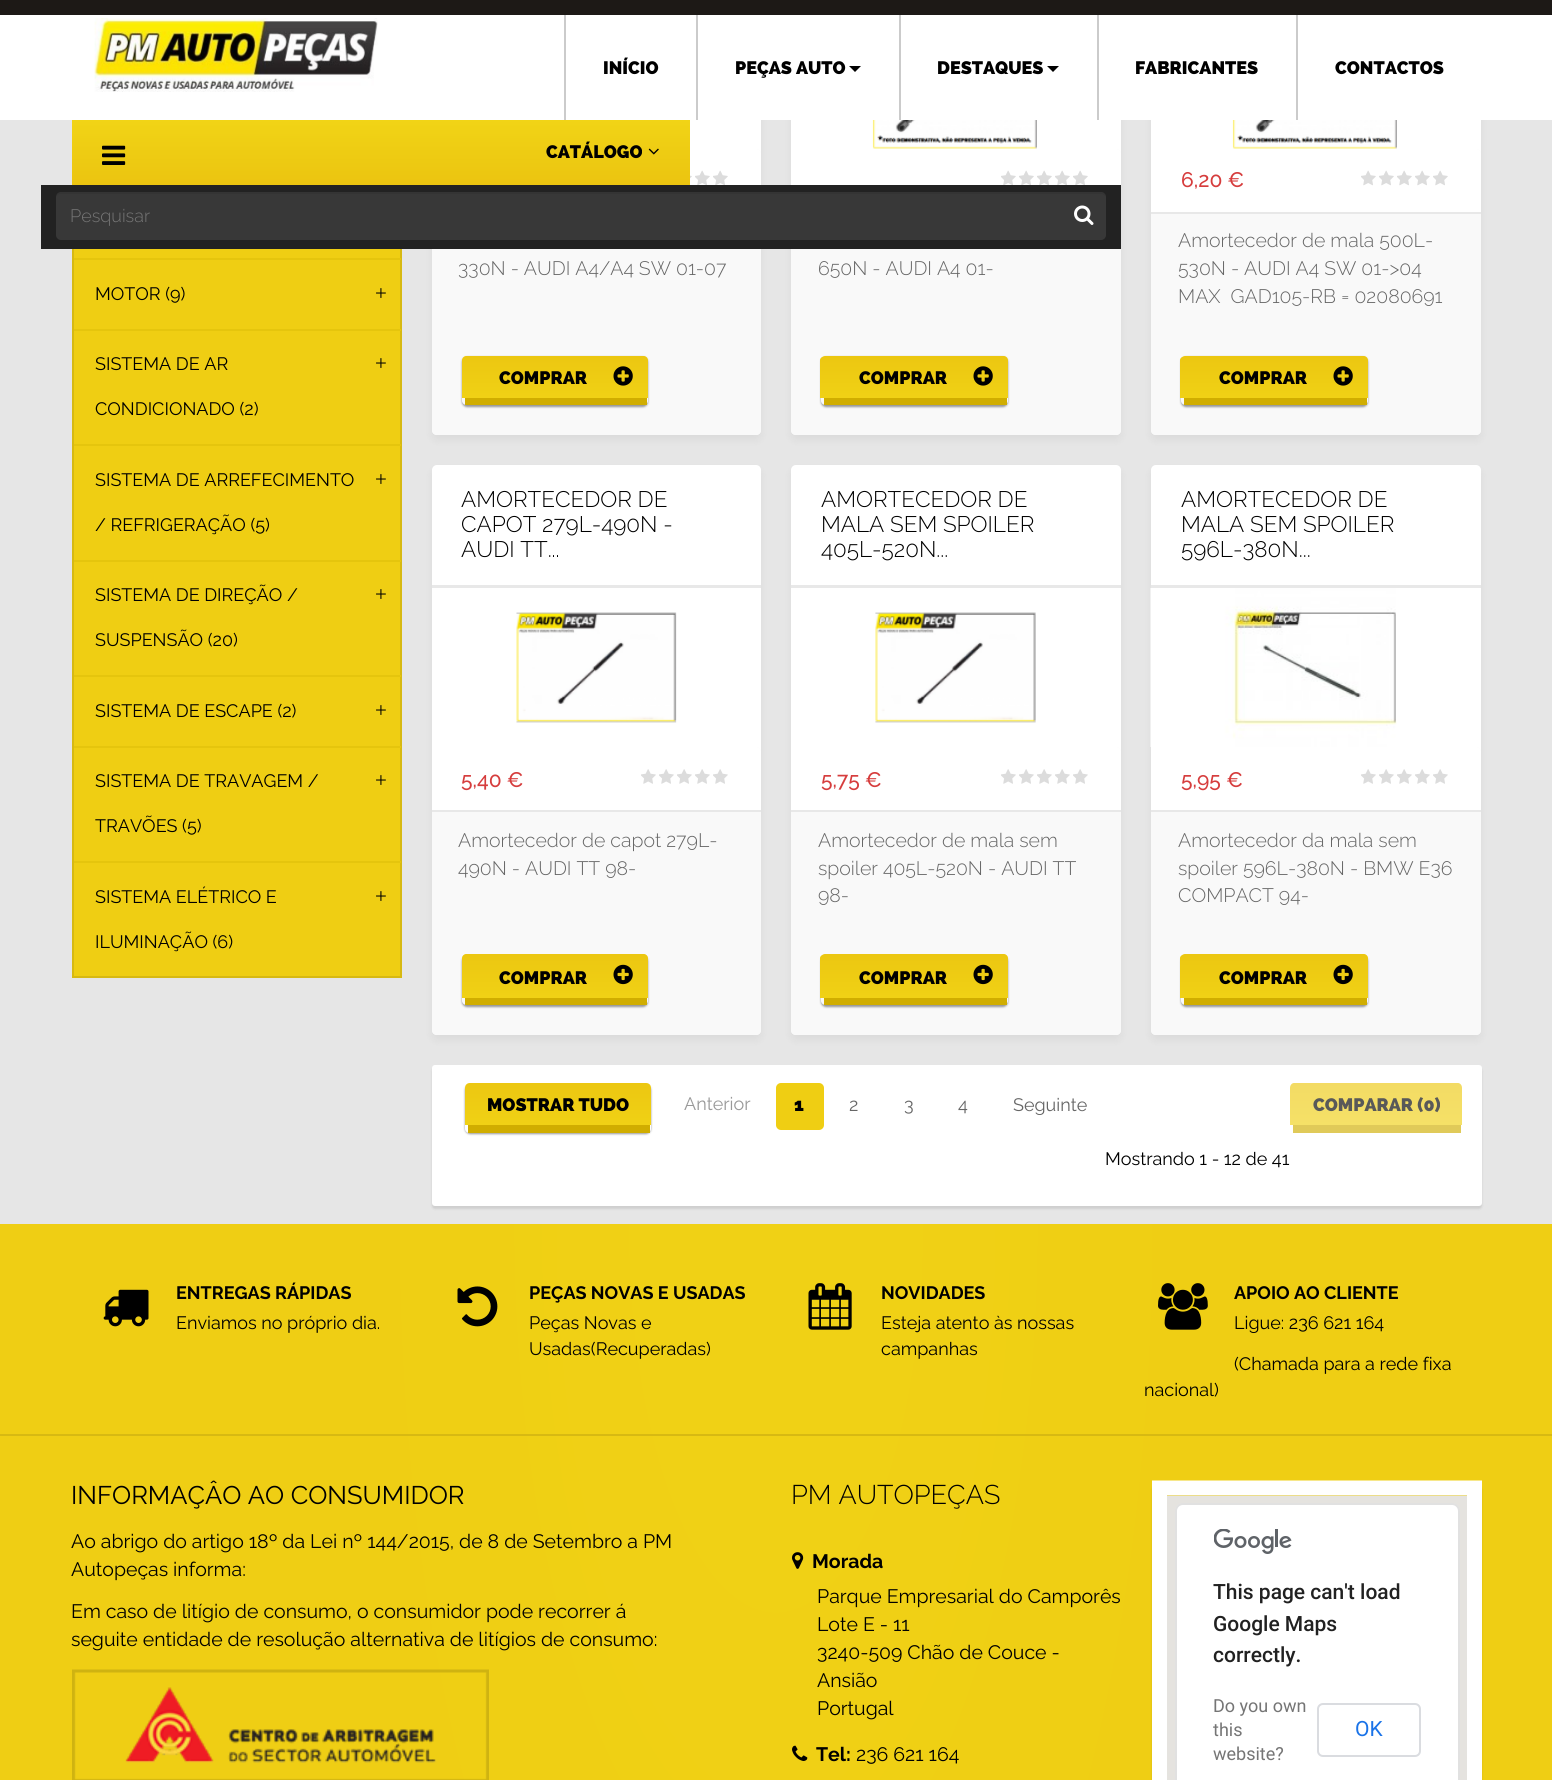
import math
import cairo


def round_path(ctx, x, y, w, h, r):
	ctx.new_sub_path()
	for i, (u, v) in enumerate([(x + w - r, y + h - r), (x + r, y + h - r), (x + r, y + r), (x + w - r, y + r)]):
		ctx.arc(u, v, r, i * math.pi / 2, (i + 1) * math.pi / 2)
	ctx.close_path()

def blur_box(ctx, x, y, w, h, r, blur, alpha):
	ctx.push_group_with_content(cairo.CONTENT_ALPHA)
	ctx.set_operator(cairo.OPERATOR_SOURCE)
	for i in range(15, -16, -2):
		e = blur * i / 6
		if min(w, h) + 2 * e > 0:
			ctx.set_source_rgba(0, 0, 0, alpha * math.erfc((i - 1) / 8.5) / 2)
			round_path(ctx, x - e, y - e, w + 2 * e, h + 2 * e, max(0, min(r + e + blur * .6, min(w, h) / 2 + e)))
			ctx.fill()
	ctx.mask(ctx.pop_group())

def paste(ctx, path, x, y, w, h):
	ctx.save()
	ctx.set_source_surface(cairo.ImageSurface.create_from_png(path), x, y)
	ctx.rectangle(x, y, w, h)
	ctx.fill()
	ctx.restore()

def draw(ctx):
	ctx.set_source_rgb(0.902, 0.902, 0.902)
	ctx.paint()
	ctx.set_source_rgb(0.937, 0.808, 0.078)
	ctx.rectangle(74, 249, 326, 727)
	ctx.fill()
	ctx.rectangle(73, -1, 328, 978)
	ctx.set_source_rgb(0.843, 0.725, 0.071)
	ctx.stroke()
	ctx.set_source_rgb(0, 0, 0)
	blur_box(ctx, 432, -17, 329, 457, 5, 4, 0.05)
	ctx.set_source_rgb(1, 1, 1)
	round_path(ctx, 432, -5, 329, 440, 5)
	ctx.fill()
	ctx.set_source_rgb(0, 0, 0)
	blur_box(ctx, 791, -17, 330, 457, 5, 4, 0.05)
	ctx.set_source_rgb(1, 1, 1)
	round_path(ctx, 791, -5, 330, 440, 5)
	ctx.fill()
	ctx.set_source_rgb(0, 0, 0)
	blur_box(ctx, 1151, -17, 330, 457, 5, 4, 0.05)
	ctx.set_source_rgb(1, 1, 1)
	round_path(ctx, 1151, -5, 330, 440, 5)
	ctx.fill()
	ctx.set_source_rgb(0.114, 0.098, 0.086)
	ctx.rectangle(0, 0, 1552, 15)
	ctx.fill()
	ctx.set_source_rgb(1, 1, 1)
	ctx.rectangle(0, 15, 1552, 105)
	ctx.fill()
	paste(ctx, 'media/1.png', 94, 18, 284, 74)
	ctx.set_source_rgb(0.796, 0.796, 0.796)
	ctx.rectangle(564, 15, 2, 105)
	ctx.fill()
	ctx.select_font_face('Raleway Black')
	ctx.set_font_size(18)
	ctx.set_source_rgb(0, 0, 0)
	ctx.move_to(603, 74)
	ctx.show_text('INÍCIO')
	ctx.set_source_rgb(0.796, 0.796, 0.796)
	ctx.rectangle(696, 15, 2, 105)
	ctx.fill()
	ctx.set_source_rgb(0, 0, 0)
	ctx.move_to(735, 74)
	ctx.show_text('PEÇAS AUTO')
	ctx.new_path()
	ctx.move_to(849, 66)
	ctx.line_to(861, 66)
	ctx.line_to(855, 72)
	ctx.close_path()
	ctx.fill()
	ctx.set_source_rgb(0.796, 0.796, 0.796)
	ctx.rectangle(899, 15, 2, 105)
	ctx.fill()
	ctx.set_source_rgb(0, 0, 0)
	ctx.move_to(937, 74)
	ctx.show_text('DESTAQUES')
	ctx.new_path()
	ctx.move_to(1047, 66)
	ctx.line_to(1059, 66)
	ctx.line_to(1053, 72)
	ctx.close_path()
	ctx.fill()
	ctx.set_source_rgb(0.796, 0.796, 0.796)
	ctx.rectangle(1097, 15, 2, 105)
	ctx.fill()
	ctx.set_source_rgb(0, 0, 0)
	ctx.move_to(1135, 74)
	ctx.show_text('FABRICANTES')
	ctx.set_source_rgb(0.796, 0.796, 0.796)
	ctx.rectangle(1296, 15, 2, 105)
	ctx.fill()
	ctx.set_source_rgb(0, 0, 0)
	ctx.move_to(1335, 74)
	ctx.show_text('CONTACTOS')
	ctx.set_source_rgb(0.973, 0.973, 0.973)
	ctx.new_path()
	ctx.move_to(432, 149)
	ctx.line_to(756, 149)
	ctx.curve_to(759, 149, 761, 151, 761, 154)
	ctx.line_to(761, 430)
	ctx.curve_to(761, 433, 759, 435, 756, 435)
	ctx.line_to(437, 435)
	ctx.curve_to(434, 435, 432, 433, 432, 430)
	ctx.close_path()
	ctx.fill()
	ctx.set_source_rgb(1, 1, 1)
	ctx.new_path()
	ctx.move_to(432, 149)
	ctx.line_to(756, 149)
	ctx.curve_to(759, 149, 761, 151, 761, 154)
	ctx.line_to(761, 212)
	ctx.line_to(432, 212)
	ctx.close_path()
	ctx.fill()
	gradient = cairo.LinearGradient(381, 120, 381, 185)
	gradient.add_color_stop_rgba(0, 0.945, 0.831, 0.086, 1)
	gradient.add_color_stop_rgba(1, 0.922, 0.769, 0.063, 1)
	ctx.set_source(gradient)
	ctx.rectangle(72, 120, 618, 65)
	ctx.fill()
	paste(ctx, 'media/2.png', 102, 145, 24, 20)
	ctx.set_source_rgb(0, 0, 0)
	ctx.move_to(546, 158)
	ctx.show_text('CATÁLOGO')
	paste(ctx, 'media/3.png', 648, 148, 11, 7)
	ctx.set_source_rgb(0.973, 0.973, 0.973)
	ctx.new_path()
	ctx.move_to(791, 149)
	ctx.line_to(1116, 149)
	ctx.curve_to(1119, 149, 1121, 151, 1121, 154)
	ctx.line_to(1121, 430)
	ctx.curve_to(1121, 433, 1119, 435, 1116, 435)
	ctx.line_to(796, 435)
	ctx.curve_to(793, 435, 791, 433, 791, 430)
	ctx.close_path()
	ctx.fill()
	ctx.set_source_rgb(1, 1, 1)
	ctx.new_path()
	ctx.move_to(791, 149)
	ctx.line_to(1116, 149)
	ctx.curve_to(1119, 149, 1121, 151, 1121, 154)
	ctx.line_to(1121, 212)
	ctx.line_to(791, 212)
	ctx.close_path()
	ctx.fill()
	ctx.set_source_rgb(0.133, 0.133, 0.133)
	ctx.rectangle(41, 185, 1080, 64)
	ctx.fill()
	ctx.set_source_rgb(0.22, 0.22, 0.22)
	round_path(ctx, 56, 192, 1050, 48, 5)
	ctx.fill()
	ctx.set_source_rgba(0, 0, 0, 0.07)
	ctx.new_path()
	ctx.move_to(60, 194)
	ctx.line_to(1101, 194)
	ctx.curve_to(1103, 194, 1106, 196, 1106, 198)
	ctx.curve_to(1106, 195, 1104, 192, 1101, 192)
	ctx.line_to(61, 192)
	ctx.curve_to(58, 192, 56, 195, 56, 198)
	ctx.curve_to(56, 196, 58, 194, 60, 194)
	ctx.close_path()
	ctx.fill()
	ctx.select_font_face('Raleway Light')
	ctx.set_source_rgb(0.459, 0.459, 0.459)
	ctx.move_to(70, 222)
	ctx.show_text('Pesquisar')
	paste(ctx, 'media/4.png', 1074, 205, 20, 20)
	ctx.set_source_rgb(0.898, 0.773, 0.051)
	ctx.rectangle(74, 258, 327, 2)
	ctx.fill()
	ctx.rectangle(74, 329, 327, 2)
	ctx.fill()
	ctx.select_font_face('Raleway')
	ctx.set_source_rgb(0, 0, 0)
	ctx.move_to(95, 300)
	ctx.show_text('MOTOR (9)')
	ctx.select_font_face('Liberation Serif')
	ctx.set_font_size(21)
	ctx.move_to(375, 300)
	ctx.show_text('+')
	ctx.set_source_rgb(0.898, 0.773, 0.051)
	ctx.rectangle(74, 444, 327, 2)
	ctx.fill()
	ctx.select_font_face('Raleway')
	ctx.set_font_size(18)
	ctx.set_source_rgb(0, 0, 0)
	ctx.move_to(95, 370)
	ctx.show_text('SISTEMA DE AR')
	ctx.move_to(95, 415)
	ctx.show_text('CONDICIONADO (2)')
	ctx.select_font_face('Liberation Serif')
	ctx.set_font_size(21)
	ctx.move_to(375, 370)
	ctx.show_text('+')
	ctx.set_source_rgb(0.898, 0.773, 0.051)
	ctx.rectangle(74, 560, 327, 2)
	ctx.fill()
	ctx.select_font_face('Raleway')
	ctx.set_font_size(18)
	ctx.set_source_rgb(0, 0, 0)
	ctx.move_to(95, 486)
	ctx.show_text('SISTEMA DE ARREFECIMENTO')
	ctx.move_to(95, 531)
	ctx.show_text('/ REFRIGERAÇÃO (5)')
	ctx.select_font_face('Liberation Serif')
	ctx.set_font_size(21)
	ctx.move_to(375, 486)
	ctx.show_text('+')
	ctx.set_source_rgb(0.898, 0.773, 0.051)
	ctx.rectangle(74, 675, 327, 2)
	ctx.fill()
	ctx.select_font_face('Raleway')
	ctx.set_font_size(18)
	ctx.set_source_rgb(0, 0, 0)
	ctx.move_to(95, 601)
	ctx.show_text('SISTEMA DE DIREÇÃO /')
	ctx.move_to(95, 646)
	ctx.show_text('SUSPENSÃO (20)')
	ctx.select_font_face('Liberation Serif')
	ctx.set_font_size(21)
	ctx.move_to(375, 601)
	ctx.show_text('+')
	ctx.set_source_rgb(0.898, 0.773, 0.051)
	ctx.rectangle(74, 746, 327, 2)
	ctx.fill()
	ctx.select_font_face('Raleway')
	ctx.set_font_size(18)
	ctx.set_source_rgb(0, 0, 0)
	ctx.move_to(95, 717)
	ctx.show_text('SISTEMA DE ESCAPE (2)')
	ctx.select_font_face('Liberation Serif')
	ctx.set_font_size(21)
	ctx.move_to(375, 717)
	ctx.show_text('+')
	ctx.set_source_rgb(0.898, 0.773, 0.051)
	ctx.rectangle(74, 861, 327, 2)
	ctx.fill()
	ctx.select_font_face('Raleway')
	ctx.set_font_size(18)
	ctx.set_source_rgb(0, 0, 0)
	ctx.move_to(95, 787)
	ctx.show_text('SISTEMA DE TRAVAGEM /')
	ctx.move_to(95, 832)
	ctx.show_text('TRAVÕES (5)')
	ctx.select_font_face('Liberation Serif')
	ctx.set_font_size(21)
	ctx.move_to(375, 787)
	ctx.show_text('+')
	ctx.select_font_face('Raleway')
	ctx.set_font_size(18)
	ctx.move_to(95, 903)
	ctx.show_text('SISTEMA ELÉTRICO E')
	ctx.move_to(95, 948)
	ctx.show_text('ILUMINAÇÃO (6)')
	ctx.select_font_face('Liberation Serif')
	ctx.set_font_size(21)
	ctx.move_to(375, 903)
	ctx.show_text('+')
	paste(ctx, 'media/5.png', 690, 175, 2, 4)
	paste(ctx, 'media/6.png', 695, 170, 15, 15)
	paste(ctx, 'media/6.png', 713, 170, 15, 15)
	ctx.select_font_face('Raleway Light')
	ctx.set_font_size(19.5)
	ctx.set_source_rgb(0.4, 0.4, 0.4)
	ctx.move_to(458, 275)
	ctx.show_text('330N - AUDI A4/A4 SW 01-07')
	ctx.save()
	ctx.set_fill_rule(cairo.FILL_RULE_EVEN_ODD)
	ctx.new_path()
	ctx.move_to(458, 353)
	ctx.line_to(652, 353)
	ctx.line_to(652, 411)
	ctx.line_to(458, 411)
	ctx.close_path()
	ctx.move_to(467, 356)
	ctx.line_to(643, 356)
	ctx.curve_to(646, 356, 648, 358, 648, 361)
	ctx.line_to(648, 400)
	ctx.curve_to(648, 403, 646, 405, 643, 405)
	ctx.line_to(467, 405)
	ctx.curve_to(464, 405, 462, 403, 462, 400)
	ctx.line_to(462, 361)
	ctx.curve_to(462, 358, 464, 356, 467, 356)
	ctx.close_path()
	ctx.clip()
	ctx.set_source_rgb(0, 0.004, 0.004)
	blur_box(ctx, 462, 357, 186, 50, 5, 1, 0.4)
	ctx.restore()
	gradient = cairo.LinearGradient(555, 356, 555, 398)
	gradient.add_color_stop_rgba(0, 0.925, 0.78, 0.067, 1)
	gradient.add_color_stop_rgba(1, 0.941, 0.82, 0.082, 1)
	ctx.set_source(gradient)
	ctx.new_path()
	ctx.move_to(466, 356)
	ctx.line_to(644, 356)
	ctx.curve_to(646, 356, 648, 358, 648, 360)
	ctx.line_to(648, 398)
	ctx.line_to(462, 398)
	ctx.line_to(462, 360)
	ctx.curve_to(462, 358, 464, 356, 466, 356)
	ctx.close_path()
	ctx.fill()
	ctx.set_source_rgb(0.816, 0.678, 0)
	ctx.rectangle(465, 398, 182, 7)
	ctx.fill()
	ctx.select_font_face('Raleway Black')
	ctx.set_font_size(18)
	ctx.set_source_rgb(0, 0, 0)
	ctx.move_to(499, 384)
	ctx.show_text('COMPRAR')
	paste(ctx, 'media/7.png', 613, 366, 20, 20)
	paste(ctx, 'media/8.png', 872, 120, 165, 29)
	paste(ctx, 'media/6.png', 1001, 170, 15, 15)
	paste(ctx, 'media/6.png', 1019, 170, 15, 15)
	paste(ctx, 'media/6.png', 1037, 170, 15, 15)
	paste(ctx, 'media/6.png', 1055, 170, 15, 15)
	paste(ctx, 'media/6.png', 1073, 170, 15, 15)
	ctx.select_font_face('Raleway Light')
	ctx.set_font_size(19.5)
	ctx.set_source_rgb(0.4, 0.4, 0.4)
	ctx.move_to(818, 275)
	ctx.show_text('650N - AUDI A4 01-')
	ctx.save()
	ctx.set_fill_rule(cairo.FILL_RULE_EVEN_ODD)
	ctx.new_path()
	ctx.move_to(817, 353)
	ctx.line_to(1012, 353)
	ctx.line_to(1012, 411)
	ctx.line_to(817, 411)
	ctx.close_path()
	ctx.move_to(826, 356)
	ctx.line_to(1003, 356)
	ctx.curve_to(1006, 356, 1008, 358, 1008, 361)
	ctx.line_to(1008, 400)
	ctx.curve_to(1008, 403, 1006, 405, 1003, 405)
	ctx.line_to(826, 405)
	ctx.curve_to(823, 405, 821, 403, 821, 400)
	ctx.line_to(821, 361)
	ctx.curve_to(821, 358, 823, 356, 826, 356)
	ctx.close_path()
	ctx.clip()
	ctx.set_source_rgb(0, 0.004, 0.004)
	blur_box(ctx, 821, 357, 187, 50, 5, 1, 0.4)
	ctx.restore()
	gradient = cairo.LinearGradient(914, 356, 914, 398)
	gradient.add_color_stop_rgba(0, 0.925, 0.78, 0.067, 1)
	gradient.add_color_stop_rgba(1, 0.941, 0.82, 0.082, 1)
	ctx.set_source(gradient)
	ctx.new_path()
	ctx.move_to(825, 356)
	ctx.line_to(1004, 356)
	ctx.curve_to(1006, 356, 1008, 358, 1008, 360)
	ctx.line_to(1008, 398)
	ctx.line_to(820, 398)
	ctx.line_to(820, 360)
	ctx.curve_to(820, 358, 823, 356, 825, 356)
	ctx.close_path()
	ctx.fill()
	ctx.set_source_rgb(0.816, 0.678, 0)
	ctx.rectangle(824, 398, 183, 7)
	ctx.fill()
	ctx.select_font_face('Raleway Black')
	ctx.set_font_size(18)
	ctx.set_source_rgb(0, 0, 0)
	ctx.move_to(859, 384)
	ctx.show_text('COMPRAR')
	paste(ctx, 'media/7.png', 973, 366, 20, 20)
	paste(ctx, 'media/8.png', 1232, 120, 165, 29)
	ctx.set_source_rgb(0.973, 0.973, 0.973)
	ctx.new_path()
	ctx.move_to(1151, 149)
	ctx.line_to(1476, 149)
	ctx.curve_to(1479, 149, 1481, 151, 1481, 154)
	ctx.line_to(1481, 430)
	ctx.curve_to(1481, 433, 1479, 435, 1476, 435)
	ctx.line_to(1156, 435)
	ctx.curve_to(1153, 435, 1151, 433, 1151, 430)
	ctx.close_path()
	ctx.fill()
	ctx.set_source_rgb(1, 1, 1)
	ctx.new_path()
	ctx.move_to(1151, 149)
	ctx.line_to(1476, 149)
	ctx.curve_to(1479, 149, 1481, 151, 1481, 154)
	ctx.line_to(1481, 212)
	ctx.line_to(1151, 212)
	ctx.close_path()
	ctx.fill()
	ctx.select_font_face('Raleway Medium')
	ctx.set_font_size(21)
	ctx.set_source_rgb(0.839, 0.239, 0.239)
	ctx.move_to(1181, 187)
	ctx.show_text('6,20 €')
	paste(ctx, 'media/9.png', 1361, 170, 15, 16)
	paste(ctx, 'media/9.png', 1379, 170, 15, 16)
	paste(ctx, 'media/9.png', 1397, 170, 15, 16)
	paste(ctx, 'media/9.png', 1415, 170, 15, 16)
	paste(ctx, 'media/9.png', 1433, 170, 15, 16)
	ctx.set_source_rgb(0.91, 0.91, 0.91)
	ctx.rectangle(1151, 212, 330, 2)
	ctx.fill()
	ctx.select_font_face('Raleway Light')
	ctx.set_font_size(19.5)
	ctx.set_source_rgb(0.4, 0.4, 0.4)
	for x, y, s in [
		(1178, 247, 'Amortecedor de mala 500L-'),
		(1178, 275, '530N - AUDI A4 SW 01->04'),
		(1178, 303, 'MAX  GAD105-RB = 02080691'),
	]:
		ctx.move_to(x, y)
		ctx.show_text(s)
	ctx.save()
	ctx.set_fill_rule(cairo.FILL_RULE_EVEN_ODD)
	ctx.new_path()
	ctx.move_to(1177, 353)
	ctx.line_to(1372, 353)
	ctx.line_to(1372, 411)
	ctx.line_to(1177, 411)
	ctx.close_path()
	ctx.move_to(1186, 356)
	ctx.line_to(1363, 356)
	ctx.curve_to(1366, 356, 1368, 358, 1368, 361)
	ctx.line_to(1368, 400)
	ctx.curve_to(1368, 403, 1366, 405, 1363, 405)
	ctx.line_to(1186, 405)
	ctx.curve_to(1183, 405, 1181, 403, 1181, 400)
	ctx.line_to(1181, 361)
	ctx.curve_to(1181, 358, 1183, 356, 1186, 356)
	ctx.close_path()
	ctx.clip()
	ctx.set_source_rgb(0, 0.004, 0.004)
	blur_box(ctx, 1181, 357, 187, 50, 5, 1, 0.4)
	ctx.restore()
	gradient = cairo.LinearGradient(1274, 356, 1274, 398)
	gradient.add_color_stop_rgba(0, 0.925, 0.78, 0.067, 1)
	gradient.add_color_stop_rgba(1, 0.941, 0.82, 0.082, 1)
	ctx.set_source(gradient)
	ctx.new_path()
	ctx.move_to(1185, 356)
	ctx.line_to(1364, 356)
	ctx.curve_to(1366, 356, 1368, 358, 1368, 360)
	ctx.line_to(1368, 398)
	ctx.line_to(1180, 398)
	ctx.line_to(1180, 360)
	ctx.curve_to(1180, 358, 1183, 356, 1185, 356)
	ctx.close_path()
	ctx.fill()
	ctx.set_source_rgb(0.816, 0.678, 0)
	ctx.rectangle(1184, 398, 183, 7)
	ctx.fill()
	ctx.select_font_face('Raleway Black')
	ctx.set_font_size(18)
	ctx.set_source_rgb(0, 0, 0)
	ctx.move_to(1219, 384)
	ctx.show_text('COMPRAR')
	paste(ctx, 'media/7.png', 1333, 366, 20, 20)
	ctx.set_source_rgb(0, 0, 0)
	blur_box(ctx, 432, 470, 329, 570, 5, 4, 0.05)
	ctx.set_source_rgb(1, 1, 1)
	round_path(ctx, 432, 465, 329, 570, 5)
	ctx.fill()
	ctx.set_source_rgb(0.91, 0.91, 0.91)
	ctx.rectangle(432, 585, 329, 3)
	ctx.fill()
	ctx.select_font_face('Raleway Light')
	ctx.set_font_size(22.5)
	ctx.set_source_rgb(0, 0, 0)
	for x, y, s in [
		(461, 507, 'AMORTECEDOR DE'),
		(461, 532, 'CAPOT 279L-490N -'),
		(461, 557, 'AUDI TT...'),
	]:
		ctx.move_to(x, y)
		ctx.show_text(s)
	paste(ctx, 'media/10.png', 516, 612, 161, 111)
	ctx.set_source_rgb(0.973, 0.973, 0.973)
	ctx.new_path()
	ctx.move_to(432, 747)
	ctx.line_to(756, 747)
	ctx.curve_to(759, 747, 761, 749, 761, 752)
	ctx.line_to(761, 1030)
	ctx.curve_to(761, 1033, 759, 1035, 756, 1035)
	ctx.line_to(437, 1035)
	ctx.curve_to(434, 1035, 432, 1033, 432, 1030)
	ctx.close_path()
	ctx.fill()
	ctx.set_source_rgb(1, 1, 1)
	ctx.new_path()
	ctx.move_to(432, 747)
	ctx.line_to(756, 747)
	ctx.curve_to(759, 747, 761, 749, 761, 752)
	ctx.line_to(761, 810)
	ctx.line_to(432, 810)
	ctx.close_path()
	ctx.fill()
	ctx.select_font_face('Raleway Medium')
	ctx.set_font_size(21)
	ctx.set_source_rgb(0.839, 0.239, 0.239)
	ctx.move_to(461, 787)
	ctx.show_text('5,40 €')
	paste(ctx, 'media/11.png', 641, 769, 15, 15)
	paste(ctx, 'media/11.png', 659, 769, 15, 15)
	paste(ctx, 'media/11.png', 677, 769, 15, 15)
	paste(ctx, 'media/11.png', 695, 769, 15, 15)
	paste(ctx, 'media/11.png', 713, 769, 15, 15)
	ctx.set_source_rgb(0.91, 0.91, 0.91)
	ctx.rectangle(432, 810, 329, 2)
	ctx.fill()
	ctx.select_font_face('Raleway Light')
	ctx.set_font_size(19.5)
	ctx.set_source_rgb(0.4, 0.4, 0.4)
	ctx.move_to(458, 847)
	ctx.show_text('Amortecedor de capot 279L-')
	ctx.move_to(458, 875)
	ctx.show_text('490N - AUDI TT 98-')
	ctx.save()
	ctx.set_fill_rule(cairo.FILL_RULE_EVEN_ODD)
	ctx.new_path()
	ctx.move_to(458, 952)
	ctx.line_to(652, 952)
	ctx.line_to(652, 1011)
	ctx.line_to(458, 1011)
	ctx.close_path()
	ctx.move_to(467, 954)
	ctx.line_to(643, 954)
	ctx.curve_to(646, 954, 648, 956, 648, 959)
	ctx.line_to(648, 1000)
	ctx.curve_to(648, 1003, 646, 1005, 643, 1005)
	ctx.line_to(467, 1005)
	ctx.curve_to(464, 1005, 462, 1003, 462, 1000)
	ctx.line_to(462, 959)
	ctx.curve_to(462, 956, 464, 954, 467, 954)
	ctx.close_path()
	ctx.clip()
	ctx.set_source_rgb(0, 0.004, 0.004)
	blur_box(ctx, 462, 956, 186, 51, 5, 1, 0.4)
	ctx.restore()
	gradient = cairo.LinearGradient(555, 954, 555, 998)
	gradient.add_color_stop_rgba(0, 0.925, 0.78, 0.067, 1)
	gradient.add_color_stop_rgba(1, 0.941, 0.82, 0.082, 1)
	ctx.set_source(gradient)
	ctx.new_path()
	ctx.move_to(466, 954)
	ctx.line_to(644, 954)
	ctx.curve_to(646, 954, 648, 956, 648, 958)
	ctx.line_to(648, 998)
	ctx.line_to(462, 998)
	ctx.line_to(462, 958)
	ctx.curve_to(462, 956, 464, 954, 466, 954)
	ctx.close_path()
	ctx.fill()
	ctx.set_source_rgb(0.816, 0.678, 0)
	ctx.rectangle(465, 998, 182, 7)
	ctx.fill()
	ctx.select_font_face('Raleway Black')
	ctx.set_font_size(18)
	ctx.set_source_rgb(0, 0, 0)
	ctx.move_to(499, 984)
	ctx.show_text('COMPRAR')
	paste(ctx, 'media/12.png', 613, 964, 20, 21)
	ctx.set_source_rgb(0, 0, 0)
	blur_box(ctx, 791, 470, 330, 570, 5, 4, 0.05)
	ctx.set_source_rgb(1, 1, 1)
	round_path(ctx, 791, 465, 330, 570, 5)
	ctx.fill()
	ctx.set_source_rgb(0.91, 0.91, 0.91)
	ctx.rectangle(791, 585, 330, 3)
	ctx.fill()
	ctx.select_font_face('Raleway Light')
	ctx.set_font_size(22.5)
	ctx.set_source_rgb(0, 0, 0)
	for x, y, s in [
		(821, 507, 'AMORTECEDOR DE'),
		(821, 532, 'MALA SEM SPOILER'),
		(821, 557, '405L-520N...'),
	]:
		ctx.move_to(x, y)
		ctx.show_text(s)
	paste(ctx, 'media/13.png', 875, 612, 161, 111)
	ctx.set_source_rgb(0.973, 0.973, 0.973)
	ctx.new_path()
	ctx.move_to(791, 747)
	ctx.line_to(1116, 747)
	ctx.curve_to(1119, 747, 1121, 749, 1121, 752)
	ctx.line_to(1121, 1030)
	ctx.curve_to(1121, 1033, 1119, 1035, 1116, 1035)
	ctx.line_to(796, 1035)
	ctx.curve_to(793, 1035, 791, 1033, 791, 1030)
	ctx.close_path()
	ctx.fill()
	ctx.set_source_rgb(1, 1, 1)
	ctx.new_path()
	ctx.move_to(791, 747)
	ctx.line_to(1116, 747)
	ctx.curve_to(1119, 747, 1121, 749, 1121, 752)
	ctx.line_to(1121, 810)
	ctx.line_to(791, 810)
	ctx.close_path()
	ctx.fill()
	ctx.select_font_face('Raleway Medium')
	ctx.set_font_size(21)
	ctx.set_source_rgb(0.839, 0.239, 0.239)
	ctx.move_to(821, 787)
	ctx.show_text('5,75 €')
	paste(ctx, 'media/11.png', 1001, 769, 15, 15)
	paste(ctx, 'media/11.png', 1019, 769, 15, 15)
	paste(ctx, 'media/11.png', 1037, 769, 15, 15)
	paste(ctx, 'media/11.png', 1055, 769, 15, 15)
	paste(ctx, 'media/11.png', 1073, 769, 15, 15)
	ctx.set_source_rgb(0.91, 0.91, 0.91)
	ctx.rectangle(791, 810, 330, 2)
	ctx.fill()
	ctx.select_font_face('Raleway Light')
	ctx.set_font_size(19.5)
	ctx.set_source_rgb(0.4, 0.4, 0.4)
	for x, y, s in [
		(818, 847, 'Amortecedor de mala sem'),
		(818, 875, 'spoiler 405L-520N - AUDI TT'),
		(818, 902, '98-'),
	]:
		ctx.move_to(x, y)
		ctx.show_text(s)
	ctx.save()
	ctx.set_fill_rule(cairo.FILL_RULE_EVEN_ODD)
	ctx.new_path()
	ctx.move_to(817, 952)
	ctx.line_to(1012, 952)
	ctx.line_to(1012, 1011)
	ctx.line_to(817, 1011)
	ctx.close_path()
	ctx.move_to(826, 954)
	ctx.line_to(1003, 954)
	ctx.curve_to(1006, 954, 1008, 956, 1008, 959)
	ctx.line_to(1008, 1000)
	ctx.curve_to(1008, 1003, 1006, 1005, 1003, 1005)
	ctx.line_to(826, 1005)
	ctx.curve_to(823, 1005, 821, 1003, 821, 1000)
	ctx.line_to(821, 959)
	ctx.curve_to(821, 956, 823, 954, 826, 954)
	ctx.close_path()
	ctx.clip()
	ctx.set_source_rgb(0, 0.004, 0.004)
	blur_box(ctx, 821, 956, 187, 51, 5, 1, 0.4)
	ctx.restore()
	gradient = cairo.LinearGradient(914, 954, 914, 998)
	gradient.add_color_stop_rgba(0, 0.925, 0.78, 0.067, 1)
	gradient.add_color_stop_rgba(1, 0.941, 0.82, 0.082, 1)
	ctx.set_source(gradient)
	ctx.new_path()
	ctx.move_to(825, 954)
	ctx.line_to(1004, 954)
	ctx.curve_to(1006, 954, 1008, 956, 1008, 958)
	ctx.line_to(1008, 998)
	ctx.line_to(820, 998)
	ctx.line_to(820, 958)
	ctx.curve_to(820, 956, 823, 954, 825, 954)
	ctx.close_path()
	ctx.fill()
	ctx.set_source_rgb(0.816, 0.678, 0)
	ctx.rectangle(824, 998, 183, 7)
	ctx.fill()
	ctx.select_font_face('Raleway Black')
	ctx.set_font_size(18)
	ctx.set_source_rgb(0, 0, 0)
	ctx.move_to(859, 984)
	ctx.show_text('COMPRAR')
	paste(ctx, 'media/12.png', 973, 964, 20, 21)
	ctx.set_source_rgb(0, 0, 0)
	blur_box(ctx, 1151, 470, 330, 570, 5, 4, 0.05)
	ctx.set_source_rgb(1, 1, 1)
	round_path(ctx, 1151, 465, 330, 570, 5)
	ctx.fill()
	ctx.set_source_rgb(0.91, 0.91, 0.91)
	ctx.rectangle(1151, 585, 330, 3)
	ctx.fill()
	ctx.select_font_face('Raleway Light')
	ctx.set_font_size(22.5)
	ctx.set_source_rgb(0, 0, 0)
	for x, y, s in [
		(1181, 507, 'AMORTECEDOR DE'),
		(1181, 532, 'MALA SEM SPOILER'),
		(1181, 557, '596L-380N...'),
	]:
		ctx.move_to(x, y)
		ctx.show_text(s)
	paste(ctx, 'media/14.png', 1150, 588, 247, 159)
	ctx.set_source_rgb(0.973, 0.973, 0.973)
	ctx.new_path()
	ctx.move_to(1151, 747)
	ctx.line_to(1476, 747)
	ctx.curve_to(1479, 747, 1481, 749, 1481, 752)
	ctx.line_to(1481, 1030)
	ctx.curve_to(1481, 1033, 1479, 1035, 1476, 1035)
	ctx.line_to(1156, 1035)
	ctx.curve_to(1153, 1035, 1151, 1033, 1151, 1030)
	ctx.close_path()
	ctx.fill()
	ctx.set_source_rgb(1, 1, 1)
	ctx.new_path()
	ctx.move_to(1151, 747)
	ctx.line_to(1476, 747)
	ctx.curve_to(1479, 747, 1481, 749, 1481, 752)
	ctx.line_to(1481, 810)
	ctx.line_to(1151, 810)
	ctx.close_path()
	ctx.fill()
	ctx.select_font_face('Raleway Medium')
	ctx.set_font_size(21)
	ctx.set_source_rgb(0.839, 0.239, 0.239)
	ctx.move_to(1181, 787)
	ctx.show_text('5,95 €')
	paste(ctx, 'media/11.png', 1361, 769, 15, 15)
	paste(ctx, 'media/11.png', 1379, 769, 15, 15)
	paste(ctx, 'media/11.png', 1397, 769, 15, 15)
	paste(ctx, 'media/11.png', 1415, 769, 15, 15)
	paste(ctx, 'media/11.png', 1433, 769, 15, 15)
	ctx.set_source_rgb(0.91, 0.91, 0.91)
	ctx.rectangle(1151, 810, 330, 2)
	ctx.fill()
	ctx.select_font_face('Raleway Light')
	ctx.set_font_size(19.5)
	ctx.set_source_rgb(0.4, 0.4, 0.4)
	for x, y, s in [
		(1178, 847, 'Amortecedor da mala sem'),
		(1178, 875, 'spoiler 596L-380N - BMW E36'),
		(1178, 902, 'COMPACT 94-'),
	]:
		ctx.move_to(x, y)
		ctx.show_text(s)
	ctx.save()
	ctx.set_fill_rule(cairo.FILL_RULE_EVEN_ODD)
	ctx.new_path()
	ctx.move_to(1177, 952)
	ctx.line_to(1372, 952)
	ctx.line_to(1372, 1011)
	ctx.line_to(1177, 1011)
	ctx.close_path()
	ctx.move_to(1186, 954)
	ctx.line_to(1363, 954)
	ctx.curve_to(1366, 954, 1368, 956, 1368, 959)
	ctx.line_to(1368, 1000)
	ctx.curve_to(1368, 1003, 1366, 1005, 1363, 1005)
	ctx.line_to(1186, 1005)
	ctx.curve_to(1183, 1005, 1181, 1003, 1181, 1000)
	ctx.line_to(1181, 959)
	ctx.curve_to(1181, 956, 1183, 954, 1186, 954)
	ctx.close_path()
	ctx.clip()
	ctx.set_source_rgb(0, 0.004, 0.004)
	blur_box(ctx, 1181, 956, 187, 51, 5, 1, 0.4)
	ctx.restore()
	gradient = cairo.LinearGradient(1274, 954, 1274, 998)
	gradient.add_color_stop_rgba(0, 0.925, 0.78, 0.067, 1)
	gradient.add_color_stop_rgba(1, 0.941, 0.82, 0.082, 1)
	ctx.set_source(gradient)
	ctx.new_path()
	ctx.move_to(1185, 954)
	ctx.line_to(1364, 954)
	ctx.curve_to(1366, 954, 1368, 956, 1368, 958)
	ctx.line_to(1368, 998)
	ctx.line_to(1180, 998)
	ctx.line_to(1180, 958)
	ctx.curve_to(1180, 956, 1183, 954, 1185, 954)
	ctx.close_path()
	ctx.fill()
	ctx.set_source_rgb(0.816, 0.678, 0)
	ctx.rectangle(1184, 998, 183, 7)
	ctx.fill()
	ctx.select_font_face('Raleway Black')
	ctx.set_font_size(18)
	ctx.set_source_rgb(0, 0, 0)
	ctx.move_to(1219, 984)
	ctx.show_text('COMPRAR')
	paste(ctx, 'media/12.png', 1333, 964, 20, 21)
	ctx.set_source_rgb(0, 0.004, 0.004)
	blur_box(ctx, 432, 1068, 1050, 141, 3, 1, 0.1)
	ctx.set_source_rgb(1, 1, 1)
	round_path(ctx, 432, 1065, 1050, 141, 3)
	ctx.fill()
	ctx.save()
	ctx.set_fill_rule(cairo.FILL_RULE_EVEN_ODD)
	ctx.new_path()
	ctx.move_to(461, 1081)
	ctx.line_to(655, 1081)
	ctx.line_to(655, 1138)
	ctx.line_to(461, 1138)
	ctx.close_path()
	ctx.move_to(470, 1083)
	ctx.line_to(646, 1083)
	ctx.curve_to(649, 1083, 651, 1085, 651, 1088)
	ctx.line_to(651, 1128)
	ctx.curve_to(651, 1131, 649, 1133, 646, 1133)
	ctx.line_to(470, 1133)
	ctx.curve_to(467, 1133, 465, 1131, 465, 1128)
	ctx.line_to(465, 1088)
	ctx.curve_to(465, 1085, 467, 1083, 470, 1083)
	ctx.close_path()
	ctx.clip()
	ctx.set_source_rgb(0, 0.004, 0.004)
	blur_box(ctx, 465, 1085, 186, 49, 5, 1, 0.4)
	ctx.restore()
	gradient = cairo.LinearGradient(558, 1083, 558, 1125)
	gradient.add_color_stop_rgba(0, 0.925, 0.78, 0.067, 1)
	gradient.add_color_stop_rgba(1, 0.941, 0.82, 0.082, 1)
	ctx.set_source(gradient)
	ctx.new_path()
	ctx.move_to(470, 1083)
	ctx.line_to(646, 1083)
	ctx.curve_to(649, 1083, 651, 1085, 651, 1088)
	ctx.line_to(651, 1125)
	ctx.line_to(465, 1125)
	ctx.line_to(465, 1088)
	ctx.curve_to(465, 1085, 467, 1083, 470, 1083)
	ctx.close_path()
	ctx.fill()
	ctx.set_source_rgb(0.816, 0.678, 0)
	ctx.rectangle(468, 1125, 182, 8)
	ctx.fill()
	ctx.set_source_rgb(0, 0, 0)
	ctx.move_to(487, 1111)
	ctx.show_text('MOSTRAR TUDO')
	ctx.select_font_face('Raleway')
	ctx.set_source_rgb(0.6, 0.6, 0.6)
	ctx.move_to(684, 1110)
	ctx.show_text('Anterior')
	ctx.set_source_rgb(0.937, 0.808, 0.078)
	round_path(ctx, 776, 1083, 48, 47, 5)
	ctx.fill()
	ctx.select_font_face('Raleway Black')
	ctx.set_source_rgb(0, 0, 0)
	ctx.move_to(794, 1111)
	ctx.show_text('1')
	ctx.select_font_face('Raleway')
	ctx.set_source_rgb(0.4, 0.4, 0.4)
	for x, y, s in [
		(849, 1111, '2'),
		(904, 1111, '3'),
		(958, 1111, '4'),
		(1013, 1111, 'Seguinte'),
	]:
		ctx.move_to(x, y)
		ctx.show_text(s)
	ctx.set_source_rgb(0, 0, 0)
	ctx.move_to(1105, 1165)
	ctx.show_text('Mostrando 1 - 12 de 41')
	gradient = cairo.LinearGradient(1376, 1083, 1376, 1125)
	gradient.add_color_stop_rgba(0, 0.953, 0.859, 0.392, 1)
	gradient.add_color_stop_rgba(1, 0.961, 0.882, 0.404, 1)
	ctx.set_source(gradient)
	ctx.new_path()
	ctx.move_to(1294, 1083)
	ctx.line_to(1458, 1083)
	ctx.curve_to(1460, 1083, 1462, 1085, 1462, 1088)
	ctx.line_to(1462, 1125)
	ctx.line_to(1290, 1125)
	ctx.line_to(1290, 1088)
	ctx.curve_to(1290, 1085, 1292, 1083, 1294, 1083)
	ctx.close_path()
	ctx.fill()
	ctx.set_source_rgb(0.878, 0.792, 0.349)
	ctx.rectangle(1293, 1125, 168, 8)
	ctx.fill()
	ctx.select_font_face('Raleway Black')
	ctx.set_source_rgb(0.349, 0.349, 0.349)
	ctx.move_to(1313, 1111)
	ctx.show_text('COMPARAR (0)')
	gradient = cairo.RadialGradient(0, 0, 0, 0, 0, 1)
	gradient.set_matrix(cairo.Matrix(1 / 776, 0, 0, 1 / 2069, -1 * 776 / 776, -1 * 1224 / 2069))
	gradient.add_color_stop_rgba(0.1, 0.941, 0.82, 0.082, 1)
	gradient.add_color_stop_rgba(0.55, 0.937, 0.808, 0.078, 1)
	ctx.set_source(gradient)
	ctx.rectangle(0, 1224, 1552, 556)
	ctx.fill()
	ctx.set_source_rgb(0.843, 0.725, 0.071)
	ctx.rectangle(0, 1434, 1552, 2)
	ctx.fill()
	paste(ctx, 'media/15.png', 103, 1289, 46, 38)
	ctx.select_font_face('Raleway', cairo.FONT_SLANT_NORMAL, cairo.FONT_WEIGHT_BOLD)
	ctx.set_source_rgb(0, 0, 0)
	ctx.move_to(176, 1299)
	ctx.show_text('ENTREGAS RÁPIDAS')
	ctx.select_font_face('Raleway')
	ctx.move_to(176, 1329)
	ctx.show_text('Enviamos no próprio dia.')
	paste(ctx, 'media/16.png', 457, 1286, 41, 41)
	ctx.select_font_face('Raleway', cairo.FONT_SLANT_NORMAL, cairo.FONT_WEIGHT_BOLD)
	ctx.move_to(529, 1299)
	ctx.show_text('PEÇAS NOVAS E USADAS')
	ctx.select_font_face('Raleway')
	ctx.move_to(529, 1329)
	ctx.show_text('Peças Novas e')
	ctx.move_to(529, 1355)
	ctx.show_text('Usadas(Recuperadas)')
	paste(ctx, 'media/17.png', 808, 1283, 44, 47)
	ctx.select_font_face('Raleway', cairo.FONT_SLANT_NORMAL, cairo.FONT_WEIGHT_BOLD)
	ctx.move_to(881, 1299)
	ctx.show_text('NOVIDADES')
	ctx.select_font_face('Raleway')
	ctx.move_to(881, 1329)
	ctx.show_text('Esteja atento às nossas')
	ctx.move_to(881, 1355)
	ctx.show_text('campanhas')
	paste(ctx, 'media/18.png', 1158, 1283, 50, 47)
	ctx.select_font_face('Raleway', cairo.FONT_SLANT_NORMAL, cairo.FONT_WEIGHT_BOLD)
	ctx.move_to(1234, 1299)
	ctx.show_text('APOIO AO CLIENTE')
	ctx.select_font_face('Raleway')
	for x, y, s in [
		(1234, 1329, 'Ligue: 236 621 164'),
		(1234, 1370, '(Chamada para a rede fixa'),
		(1144, 1396, 'nacional)'),
	]:
		ctx.move_to(x, y)
		ctx.show_text(s)
	ctx.set_font_size(25.5)
	ctx.move_to(71, 1504)
	ctx.show_text('INFORMAÇÂO AO CONSUMIDOR')
	ctx.set_font_size(19.5)
	for x, y, s in [
		(71, 1548, 'Ao abrigo do artigo 18º da Lei nº 144/2015, de 8 de Setembro a PM'),
		(71, 1576, 'Autopeças informa:'),
		(71, 1618, 'Em caso de litígio de consumo, o consumidor pode recorrer á'),
		(71, 1646, 'seguite entidade de resolução alternativa de litígios de consumo:'),
	]:
		ctx.move_to(x, y)
		ctx.show_text(s)
	paste(ctx, 'media/19.png', 72, 1669, 417, 111)
	ctx.select_font_face('Raleway Light')
	ctx.set_font_size(27)
	ctx.move_to(791, 1504)
	ctx.show_text('PM AUTOPEÇAS')
	paste(ctx, 'media/20.png', 792, 1552, 12, 17)
	ctx.select_font_face('Raleway', cairo.FONT_SLANT_NORMAL, cairo.FONT_WEIGHT_BOLD)
	ctx.set_font_size(19.5)
	ctx.move_to(812, 1568)
	ctx.show_text('Morada')
	ctx.select_font_face('Raleway')
	for x, y, s in [
		(817, 1603, 'Parque Empresarial do Camporês'),
		(817, 1631, 'Lote E - 11'),
		(817, 1659, '3240-509 Chão de Couce -'),
		(817, 1687, 'Ansião'),
		(817, 1715, 'Portugal'),
	]:
		ctx.move_to(x, y)
		ctx.show_text(s)
	paste(ctx, 'media/21.png', 792, 1745, 16, 16)
	ctx.select_font_face('Raleway', cairo.FONT_SLANT_NORMAL, cairo.FONT_WEIGHT_BOLD)
	ctx.move_to(816, 1761)
	ctx.show_text('Tel:')
	ctx.select_font_face('Raleway')
	ctx.move_to(856, 1761)
	ctx.show_text('236 621 164')
	ctx.set_source_rgb(0, 0.004, 0.004)
	blur_box(ctx, 1152, 1485, 330, 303, 5, 1, 0.1)
	ctx.new_path()
	ctx.move_to(1159.5, 1488)
	ctx.line_to(1474.5, 1488)
	ctx.line_to(1474.5, 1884)
	ctx.line_to(1159.5, 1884)
	ctx.close_path()
	ctx.set_source_rgb(1, 1, 1)
	ctx.set_line_width(15)
	ctx.stroke()
	ctx.set_source_rgb(0.898, 0.89, 0.875)
	ctx.rectangle(1167, 1496, 300, 284)
	ctx.fill()
	ctx.set_source_rgb(1, 1, 1)
	round_path(ctx, 1175, 1503, 285, 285, 8)
	ctx.fill()
	round_path(ctx, 1176, 1504, 283, 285, 7)
	ctx.set_source_rgba(0, 0, 0, 0.12)
	ctx.set_line_width(2)
	ctx.stroke()
	paste(ctx, 'media/22.png', 1214, 1529, 78, 25)
	ctx.select_font_face('Roboto Medium')
	ctx.set_font_size(21)
	ctx.set_source_rgb(0.129, 0.129, 0.129)
	for x, y, s in [
		(1213, 1599, 'This page can\'t load'),
		(1213, 1631, 'Google Maps'),
		(1213, 1662, 'correctly.'),
	]:
		ctx.move_to(x, y)
		ctx.show_text(s)
	ctx.select_font_face('Roboto')
	ctx.set_font_size(18)
	ctx.set_source_rgb(0.459, 0.459, 0.459)
	for x, y, s in [
		(1213, 1712, 'Do you own'),
		(1213, 1736, 'this'),
		(1213, 1760, 'website?'),
	]:
		ctx.move_to(x, y)
		ctx.show_text(s)
	round_path(ctx, 1318, 1704, 102, 52, 5)
	ctx.set_source_rgb(0.855, 0.863, 0.878)
	ctx.stroke()
	ctx.set_font_size(21)
	ctx.set_source_rgb(0.102, 0.451, 0.91)
	ctx.move_to(1355, 1736)
	ctx.show_text('OK')


surface = cairo.ImageSurface(cairo.FORMAT_RGB24, 1552, 1780)
ctx = cairo.Context(surface)
options = cairo.FontOptions()
options.set_hint_metrics(cairo.HINT_METRICS_OFF)
options.set_hint_style(cairo.HINT_STYLE_NONE)
ctx.set_font_options(options)
ctx.set_miter_limit(4)
draw(ctx)
surface.write_to_png('image.png')
